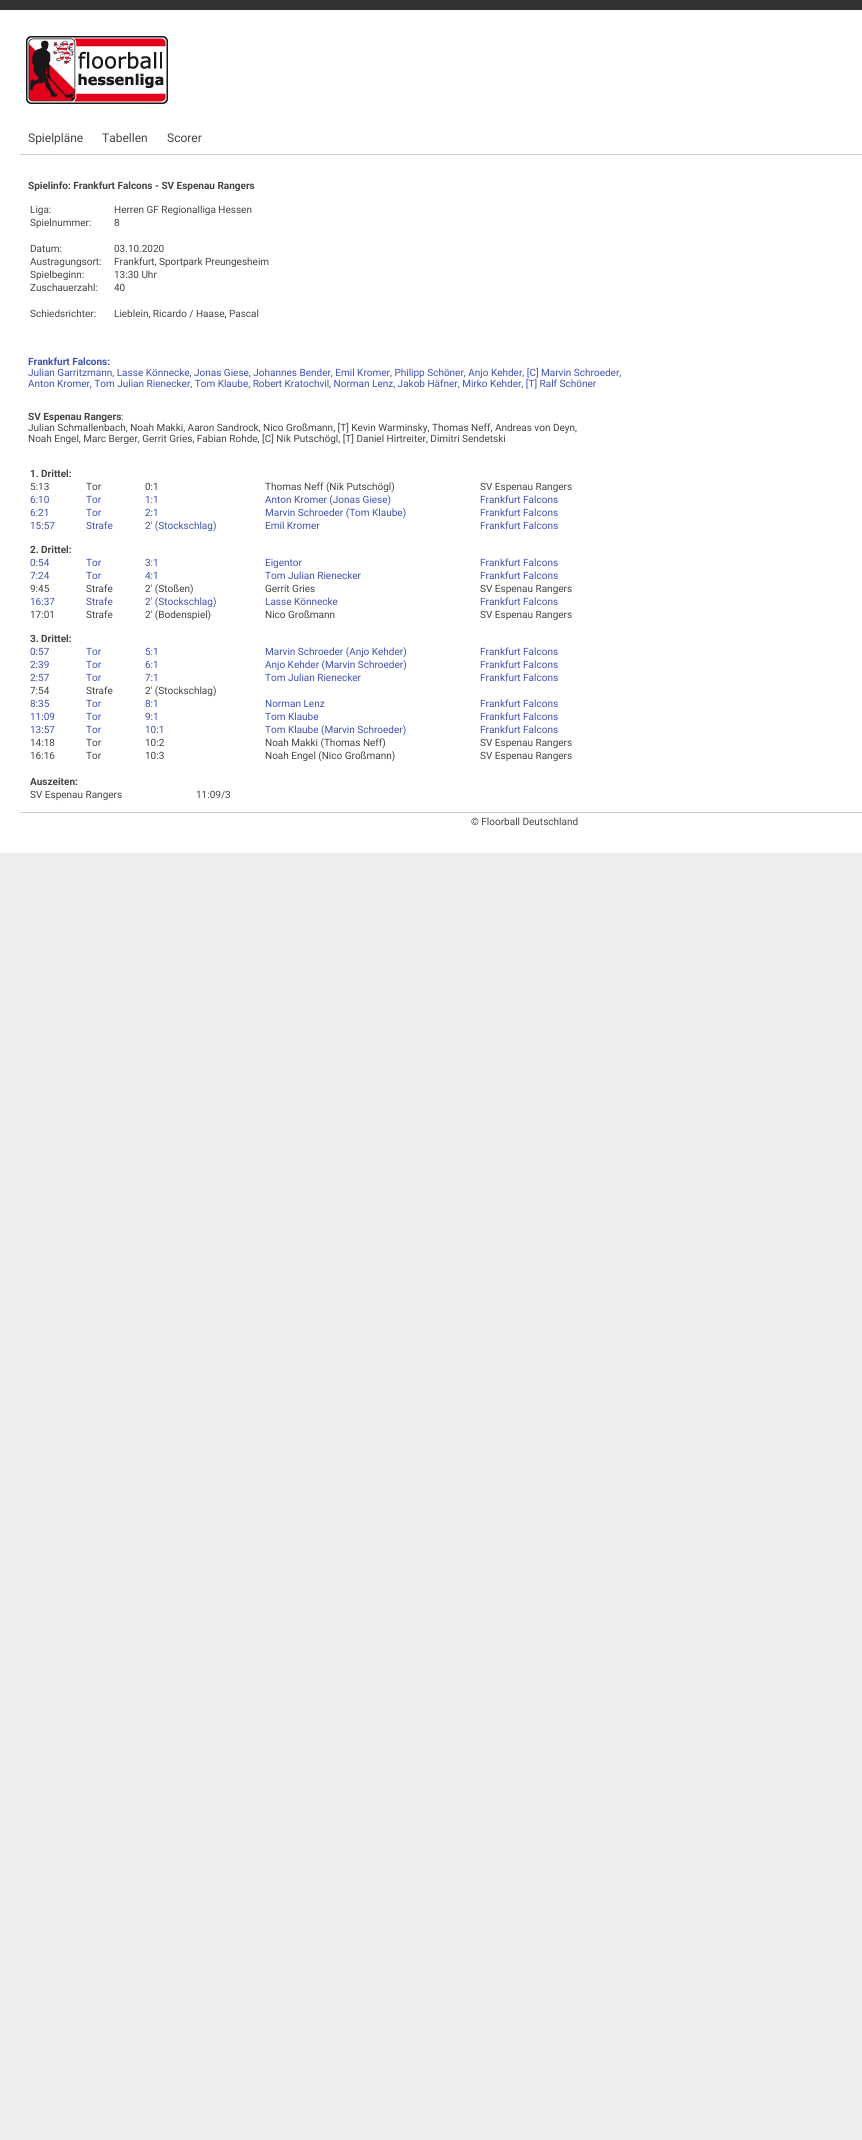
import math
import cairo


def paste(ctx, path, x, y, w, h):
	ctx.save()
	ctx.set_source_surface(cairo.ImageSurface.create_from_png(path), x, y)
	ctx.rectangle(x, y, w, h)
	ctx.fill()
	ctx.restore()

def draw(ctx):
	ctx.set_source_rgb(0.933, 0.933, 0.933)
	ctx.paint()
	ctx.set_source_rgb(0.2, 0.2, 0.2)
	ctx.rectangle(0, 0, 862, 10)
	ctx.fill()
	ctx.set_source_rgb(1, 1, 1)
	ctx.rectangle(0, 10, 862, 843)
	ctx.fill()
	paste(ctx, 'media/1.png', 26, 36, 142, 68)
	ctx.set_source_rgb(0.8, 0.8, 0.8)
	ctx.rectangle(20, 154, 842, 1)
	ctx.fill()
	ctx.select_font_face('Roboto')
	ctx.set_font_size(12)
	ctx.set_source_rgb(0.267, 0.267, 0.267)
	for x, y, s in [
		(28, 142, 'Spielpläne'),
		(102, 142, 'Tabellen'),
		(167, 142, 'Scorer'),
	]:
		ctx.move_to(x, y)
		ctx.show_text(s)
	ctx.select_font_face('Roboto', cairo.FONT_SLANT_NORMAL, cairo.FONT_WEIGHT_BOLD)
	ctx.set_font_size(10)
	ctx.move_to(28, 189)
	ctx.show_text('Spielinfo: Frankfurt Falcons - SV Espenau Rangers')
	ctx.select_font_face('Roboto')
	for x, y, s in [
		(30, 213, 'Liga:'),
		(114, 213, 'Herren GF Regionalliga Hessen'),
		(30, 226, 'Spielnummer:'),
		(114, 226, '8'),
		(30, 252, 'Datum:'),
		(114, 252, '03.10.2020'),
		(30, 265, 'Austragungsort:'),
		(114, 265, 'Frankfurt, Sportpark Preungesheim'),
		(30, 278, 'Spielbeginn:'),
		(114, 278, '13:30 Uhr'),
		(30, 291, 'Zuschauerzahl:'),
		(114, 291, '40'),
		(30, 317, 'Schiedsrichter:'),
		(114, 317, 'Lieblein, Ricardo / Haase, Pascal'),
	]:
		ctx.move_to(x, y)
		ctx.show_text(s)
	ctx.select_font_face('Roboto', cairo.FONT_SLANT_NORMAL, cairo.FONT_WEIGHT_BOLD)
	ctx.set_source_rgb(0.247, 0.318, 0.71)
	ctx.move_to(28, 365)
	ctx.show_text('Frankfurt Falcons:')
	ctx.select_font_face('Roboto')
	ctx.move_to(28, 376)
	ctx.show_text('Julian Garritzmann, Lasse Könnecke, Jonas Giese, Johannes Bender, Emil Kromer, Philipp Schöner, Anjo Kehder, [C] Marvin Schroeder,')
	ctx.move_to(28, 387)
	ctx.show_text('Anton Kromer, Tom Julian Rienecker, Tom Klaube, Robert Kratochvil, Norman Lenz, Jakob Häfner, Mirko Kehder, [T] Ralf Schöner')
	ctx.select_font_face('Roboto', cairo.FONT_SLANT_NORMAL, cairo.FONT_WEIGHT_BOLD)
	ctx.set_source_rgb(0.267, 0.267, 0.267)
	ctx.move_to(28, 420)
	ctx.show_text('SV Espenau Rangers')
	ctx.select_font_face('Roboto')
	for x, y, s in [
		(121, 420, ':'),
		(28, 431, 'Julian Schmallenbach, Noah Makki, Aaron Sandrock, Nico Großmann, [T] Kevin Warminsky, Thomas Neff, Andreas von Deyn,'),
		(28, 442, 'Noah Engel, Marc Berger, Gerrit Gries, Fabian Rohde, [C] Nik Putschögl, [T] Daniel Hirtreiter, Dimitri Sendetski'),
	]:
		ctx.move_to(x, y)
		ctx.show_text(s)
	ctx.select_font_face('Roboto', cairo.FONT_SLANT_NORMAL, cairo.FONT_WEIGHT_BOLD)
	ctx.move_to(30, 477)
	ctx.show_text('1. Drittel:')
	ctx.select_font_face('Roboto')
	for x, y, s in [
		(30, 490, '5:13'),
		(86, 490, 'Tor'),
		(145, 490, '0:1'),
		(265, 490, 'Thomas Neff (Nik Putschögl)'),
		(480, 490, 'SV Espenau Rangers'),
	]:
		ctx.move_to(x, y)
		ctx.show_text(s)
	ctx.set_source_rgb(0.247, 0.318, 0.71)
	for x, y, s in [
		(30, 503, '6:10'),
		(86, 503, 'Tor'),
		(145, 503, '1:1'),
		(265, 503, 'Anton Kromer (Jonas Giese)'),
		(480, 503, 'Frankfurt Falcons'),
		(30, 516, '6:21'),
		(86, 516, 'Tor'),
		(145, 516, '2:1'),
		(265, 516, 'Marvin Schroeder (Tom Klaube)'),
		(480, 516, 'Frankfurt Falcons'),
		(30, 529, '15:57'),
		(86, 529, 'Strafe'),
		(145, 529, '2\' (Stockschlag)'),
		(265, 529, 'Emil Kromer'),
		(480, 529, 'Frankfurt Falcons'),
	]:
		ctx.move_to(x, y)
		ctx.show_text(s)
	ctx.select_font_face('Roboto', cairo.FONT_SLANT_NORMAL, cairo.FONT_WEIGHT_BOLD)
	ctx.set_source_rgb(0.267, 0.267, 0.267)
	ctx.move_to(30, 553)
	ctx.show_text('2. Drittel:')
	ctx.select_font_face('Roboto')
	ctx.set_source_rgb(0.247, 0.318, 0.71)
	for x, y, s in [
		(30, 566, '0:54'),
		(86, 566, 'Tor'),
		(145, 566, '3:1'),
		(265, 566, 'Eigentor'),
		(480, 566, 'Frankfurt Falcons'),
		(30, 579, '7:24'),
		(86, 579, 'Tor'),
		(145, 579, '4:1'),
		(265, 579, 'Tom Julian Rienecker'),
		(480, 579, 'Frankfurt Falcons'),
	]:
		ctx.move_to(x, y)
		ctx.show_text(s)
	ctx.set_source_rgb(0.267, 0.267, 0.267)
	for x, y, s in [
		(30, 592, '9:45'),
		(86, 592, 'Strafe'),
		(145, 592, '2\' (Stoßen)'),
		(265, 592, 'Gerrit Gries'),
		(480, 592, 'SV Espenau Rangers'),
	]:
		ctx.move_to(x, y)
		ctx.show_text(s)
	ctx.set_source_rgb(0.247, 0.318, 0.71)
	for x, y, s in [
		(30, 605, '16:37'),
		(86, 605, 'Strafe'),
		(145, 605, '2\' (Stockschlag)'),
		(265, 605, 'Lasse Könnecke'),
		(480, 605, 'Frankfurt Falcons'),
	]:
		ctx.move_to(x, y)
		ctx.show_text(s)
	ctx.set_source_rgb(0.267, 0.267, 0.267)
	for x, y, s in [
		(30, 618, '17:01'),
		(86, 618, 'Strafe'),
		(145, 618, '2\' (Bodenspiel)'),
		(265, 618, 'Nico Großmann'),
		(480, 618, 'SV Espenau Rangers'),
	]:
		ctx.move_to(x, y)
		ctx.show_text(s)
	ctx.select_font_face('Roboto', cairo.FONT_SLANT_NORMAL, cairo.FONT_WEIGHT_BOLD)
	ctx.move_to(30, 642)
	ctx.show_text('3. Drittel:')
	ctx.select_font_face('Roboto')
	ctx.set_source_rgb(0.247, 0.318, 0.71)
	for x, y, s in [
		(30, 655, '0:57'),
		(86, 655, 'Tor'),
		(145, 655, '5:1'),
		(265, 655, 'Marvin Schroeder (Anjo Kehder)'),
		(480, 655, 'Frankfurt Falcons'),
		(30, 668, '2:39'),
		(86, 668, 'Tor'),
		(145, 668, '6:1'),
		(265, 668, 'Anjo Kehder (Marvin Schroeder)'),
		(480, 668, 'Frankfurt Falcons'),
		(30, 681, '2:57'),
		(86, 681, 'Tor'),
		(145, 681, '7:1'),
		(265, 681, 'Tom Julian Rienecker'),
		(480, 681, 'Frankfurt Falcons'),
	]:
		ctx.move_to(x, y)
		ctx.show_text(s)
	ctx.set_source_rgb(0.267, 0.267, 0.267)
	for x, y, s in [
		(30, 694, '7:54'),
		(86, 694, 'Strafe'),
		(145, 694, '2\' (Stockschlag)'),
	]:
		ctx.move_to(x, y)
		ctx.show_text(s)
	ctx.set_source_rgb(0.247, 0.318, 0.71)
	for x, y, s in [
		(30, 707, '8:35'),
		(86, 707, 'Tor'),
		(145, 707, '8:1'),
		(265, 707, 'Norman Lenz'),
		(480, 707, 'Frankfurt Falcons'),
		(30, 720, '11:09'),
		(86, 720, 'Tor'),
		(145, 720, '9:1'),
		(265, 720, 'Tom Klaube'),
		(480, 720, 'Frankfurt Falcons'),
		(30, 733, '13:57'),
		(86, 733, 'Tor'),
		(145, 733, '10:1'),
		(265, 733, 'Tom Klaube (Marvin Schroeder)'),
		(480, 733, 'Frankfurt Falcons'),
	]:
		ctx.move_to(x, y)
		ctx.show_text(s)
	ctx.set_source_rgb(0.267, 0.267, 0.267)
	for x, y, s in [
		(30, 746, '14:18'),
		(86, 746, 'Tor'),
		(145, 746, '10:2'),
		(265, 746, 'Noah Makki (Thomas Neff)'),
		(480, 746, 'SV Espenau Rangers'),
		(30, 759, '16:16'),
		(86, 759, 'Tor'),
		(145, 759, '10:3'),
		(265, 759, 'Noah Engel (Nico Großmann)'),
		(480, 759, 'SV Espenau Rangers'),
	]:
		ctx.move_to(x, y)
		ctx.show_text(s)
	ctx.select_font_face('Roboto', cairo.FONT_SLANT_NORMAL, cairo.FONT_WEIGHT_BOLD)
	ctx.move_to(30, 785)
	ctx.show_text('Auszeiten:')
	ctx.select_font_face('Roboto')
	ctx.move_to(30, 798)
	ctx.show_text('SV Espenau Rangers')
	ctx.move_to(196, 798)
	ctx.show_text('11:09/3')
	ctx.set_source_rgb(0.8, 0.8, 0.8)
	ctx.rectangle(20, 812, 842, 1)
	ctx.fill()
	ctx.set_source_rgb(0.267, 0.267, 0.267)
	ctx.move_to(471, 825)
	ctx.show_text('© Floorball Deutschland')


surface = cairo.ImageSurface(cairo.FORMAT_RGB24, 862, 2140)
ctx = cairo.Context(surface)
options = cairo.FontOptions()
options.set_hint_metrics(cairo.HINT_METRICS_OFF)
options.set_hint_style(cairo.HINT_STYLE_NONE)
ctx.set_font_options(options)
ctx.set_miter_limit(4)
draw(ctx)
surface.write_to_png('image.png')
